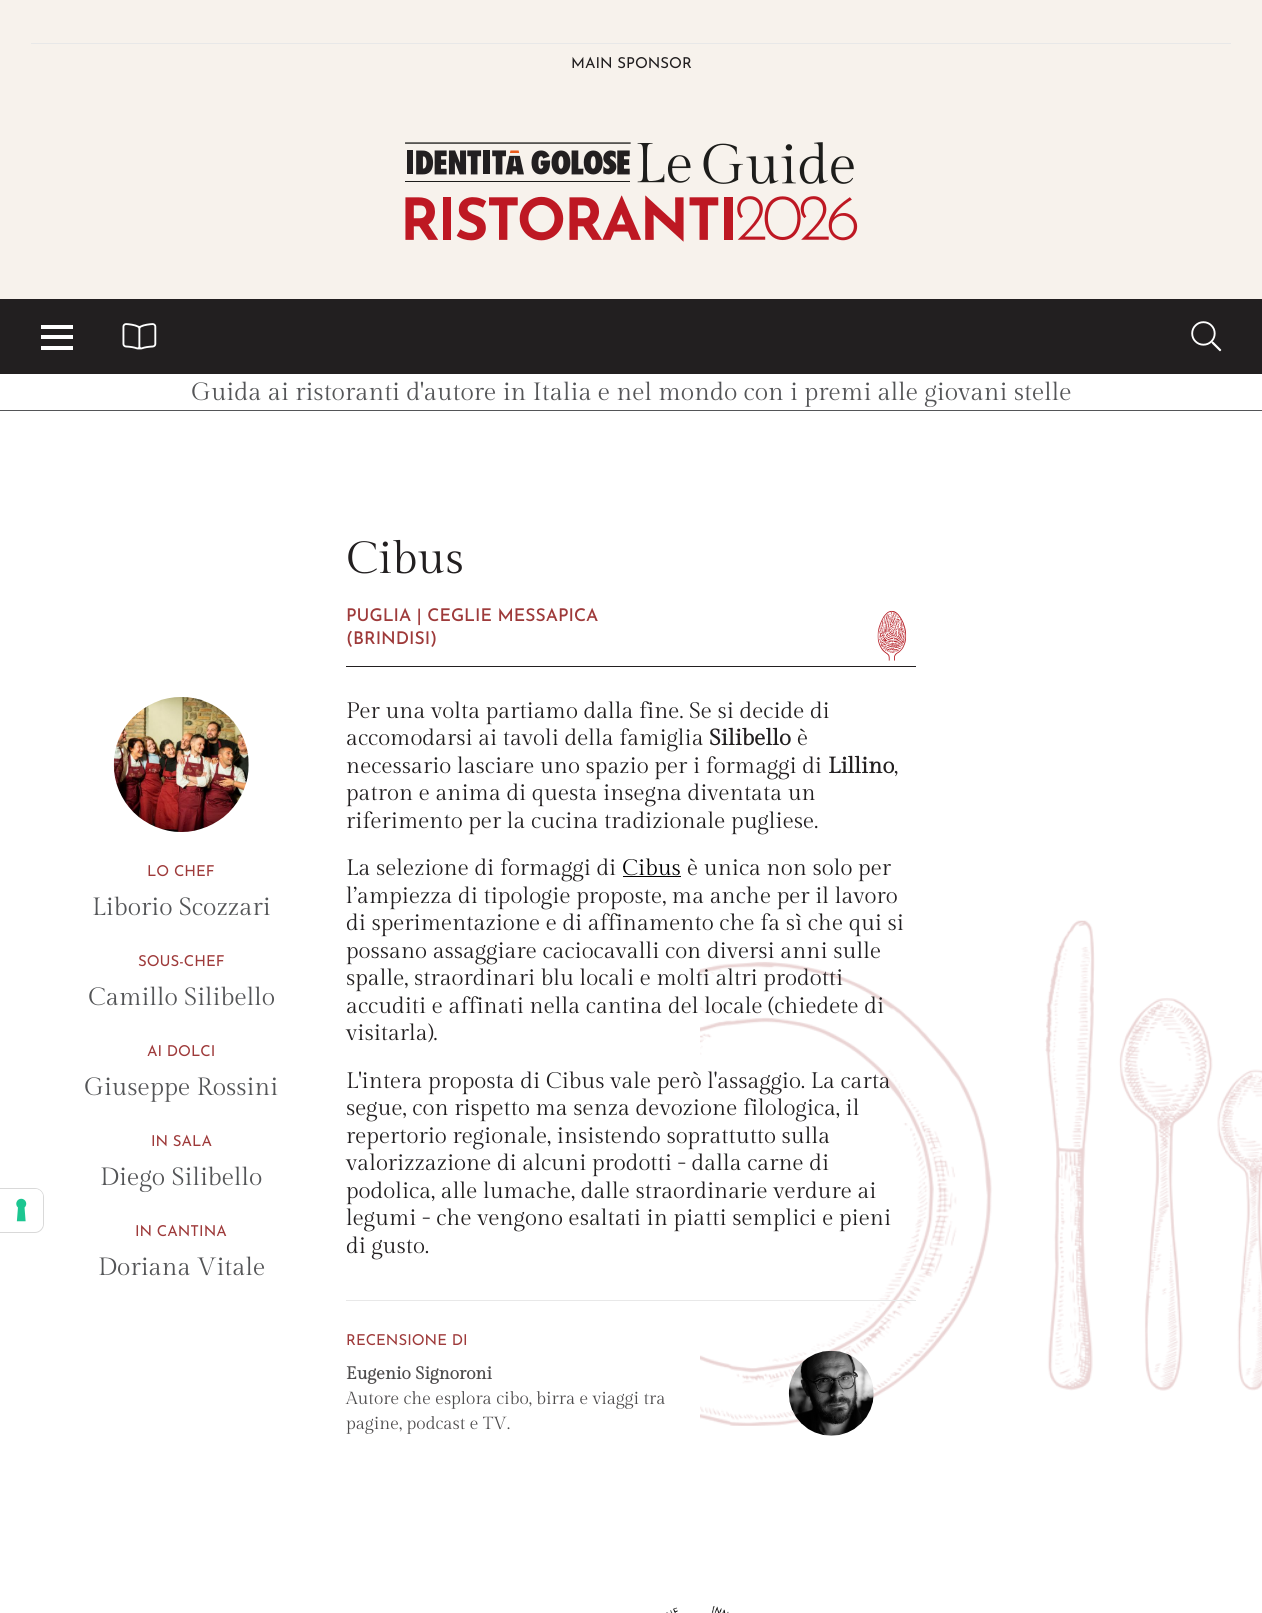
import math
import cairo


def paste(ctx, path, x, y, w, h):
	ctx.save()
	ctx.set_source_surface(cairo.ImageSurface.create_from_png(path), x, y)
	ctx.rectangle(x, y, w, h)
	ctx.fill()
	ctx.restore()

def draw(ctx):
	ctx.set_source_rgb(1, 1, 1)
	ctx.paint()
	ctx.set_source_rgb(0.965, 0.949, 0.925)
	ctx.rectangle(0, 0, 1262, 299)
	ctx.fill()
	ctx.set_source_rgb(0.91, 0.91, 0.91)
	ctx.rectangle(31, 43, 1200, 1)
	ctx.fill()
	ctx.select_font_face('Josefin Sans')
	ctx.set_font_size(15)
	ctx.set_source_rgb(0.133, 0.122, 0.125)
	ctx.move_to(571, 68)
	ctx.show_text('MAIN SPONSOR')
	paste(ctx, 'media/1.png', 405, 142, 453, 100)
	ctx.rectangle(0, 299, 1262, 75)
	ctx.fill()
	ctx.set_source_rgb(1, 1, 1)
	ctx.rectangle(41, 325, 32, 4)
	ctx.rectangle(41, 335, 32, 4)
	ctx.rectangle(41, 346, 32, 4)
	ctx.fill()
	paste(ctx, 'media/2.png', 122, 323, 35, 27)
	paste(ctx, 'media/3.png', 1191, 321, 31, 31)
	ctx.set_source_rgb(0.329, 0.333, 0.341)
	ctx.rectangle(0, 410, 1262, 1)
	ctx.fill()
	ctx.select_font_face('Gilda Display')
	ctx.set_font_size(25)
	ctx.move_to(191, 400)
	ctx.show_text('Guida ai ristoranti d\'autore in Italia e nel mondo con i premi alle giovani stelle')
	ctx.new_path()
	ctx.move_to(-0.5, 1188.5)
	ctx.line_to(35, 1188.5)
	ctx.curve_to(39.5, 1188.5, 43.5, 1192.5, 43.5, 1197)
	ctx.line_to(43.5, 1224)
	ctx.curve_to(43.5, 1228.5, 39.5, 1232.5, 35, 1232.5)
	ctx.line_to(-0.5, 1232.5)
	ctx.close_path()
	ctx.set_source_rgb(0.851, 0.851, 0.851)
	ctx.set_line_width(1)
	ctx.stroke()
	ctx.set_source_rgb(1, 1, 1)
	ctx.new_path()
	ctx.move_to(0, 1189)
	ctx.line_to(35, 1189)
	ctx.curve_to(39.5, 1189, 43, 1192.5, 43, 1197)
	ctx.line_to(43, 1223)
	ctx.curve_to(43, 1227.5, 39.5, 1231, 35, 1231)
	ctx.line_to(0, 1231)
	ctx.close_path()
	ctx.fill()
	paste(ctx, 'media/4.png', 16, 1198, 11, 24)
	paste(ctx, 'media/5.png', 700, 920, 562, 506)
	ctx.set_source_rgb(0.133, 0.122, 0.125)
	ctx.rectangle(346, 666, 570, 1)
	ctx.fill()
	ctx.set_font_size(45)
	ctx.move_to(346, 573)
	ctx.show_text('Cibus')
	ctx.select_font_face('Josefin Sans Medium')
	ctx.set_font_size(17.5)
	ctx.set_source_rgb(0.62, 0.227, 0.227)
	ctx.move_to(346, 621)
	ctx.show_text('PUGLIA | CEGLIE MESSAPICA')
	ctx.move_to(346, 644)
	ctx.show_text('(BRINDISI)')
	paste(ctx, 'media/6.png', 877, 610, 30, 51)
	paste(ctx, 'media/7.png', 113, 697, 136, 135)
	ctx.select_font_face('Josefin Sans')
	ctx.set_font_size(15)
	ctx.move_to(147, 876)
	ctx.show_text('LO CHEF')
	ctx.select_font_face('Gilda Display')
	ctx.set_font_size(25)
	ctx.set_source_rgb(0.329, 0.333, 0.341)
	ctx.move_to(92, 915)
	ctx.show_text('Liborio Scozzari')
	ctx.select_font_face('Josefin Sans')
	ctx.set_font_size(15)
	ctx.set_source_rgb(0.62, 0.227, 0.227)
	ctx.move_to(138, 966)
	ctx.show_text('SOUS-CHEF')
	ctx.select_font_face('Gilda Display')
	ctx.set_font_size(25)
	ctx.set_source_rgb(0.329, 0.333, 0.341)
	ctx.move_to(88, 1005)
	ctx.show_text('Camillo Silibello')
	ctx.select_font_face('Josefin Sans')
	ctx.set_font_size(15)
	ctx.set_source_rgb(0.62, 0.227, 0.227)
	ctx.move_to(147, 1056)
	ctx.show_text('AI DOLCI')
	ctx.select_font_face('Gilda Display')
	ctx.set_font_size(25)
	ctx.set_source_rgb(0.329, 0.333, 0.341)
	ctx.move_to(84, 1095)
	ctx.show_text('Giuseppe Rossini')
	ctx.select_font_face('Josefin Sans')
	ctx.set_font_size(15)
	ctx.set_source_rgb(0.62, 0.227, 0.227)
	ctx.move_to(151, 1146)
	ctx.show_text('IN SALA')
	ctx.select_font_face('Gilda Display')
	ctx.set_font_size(25)
	ctx.set_source_rgb(0.329, 0.333, 0.341)
	ctx.move_to(100, 1185)
	ctx.show_text('Diego Silibello')
	ctx.select_font_face('Josefin Sans')
	ctx.set_font_size(15)
	ctx.set_source_rgb(0.62, 0.227, 0.227)
	ctx.move_to(135, 1236)
	ctx.show_text('IN CANTINA')
	ctx.select_font_face('Gilda Display')
	ctx.set_font_size(25)
	ctx.set_source_rgb(0.329, 0.333, 0.341)
	ctx.move_to(98, 1275)
	ctx.show_text('Doriana Vitale')
	ctx.set_source_rgb(0.91, 0.91, 0.91)
	ctx.rectangle(346, 1300, 570, 1)
	ctx.fill()
	ctx.set_font_size(22.5)
	ctx.set_source_rgb(0.133, 0.122, 0.125)
	ctx.move_to(346, 718)
	ctx.show_text('Per una volta partiamo dalla fine. Se si decide di')
	ctx.move_to(346, 745)
	ctx.show_text('accomodarsi ai tavoli della famiglia')
	ctx.select_font_face('Gilda Display', cairo.FONT_SLANT_NORMAL, cairo.FONT_WEIGHT_BOLD)
	ctx.move_to(709, 745)
	ctx.show_text('Silibello')
	ctx.select_font_face('Gilda Display')
	ctx.move_to(797, 745)
	ctx.show_text('è')
	ctx.move_to(346, 773)
	ctx.show_text('necessario lasciare uno spazio per i formaggi di')
	ctx.select_font_face('Gilda Display', cairo.FONT_SLANT_NORMAL, cairo.FONT_WEIGHT_BOLD)
	ctx.move_to(828, 773)
	ctx.show_text('Lillino')
	ctx.select_font_face('Gilda Display')
	for x, y, s in [
		(894, 773, ','),
		(346, 800, 'patron e anima di questa insegna diventata un'),
		(346, 828, 'riferimento per la cucina tradizionale pugliese.'),
		(346, 875, 'La selezione di formaggi di'),
	]:
		ctx.move_to(x, y)
		ctx.show_text(s)
	ctx.set_source_rgb(0, 0, 0)
	ctx.move_to(622, 875)
	ctx.show_text('Cibus')
	ctx.rectangle(623, 876, 58, 1)
	ctx.fill()
	ctx.set_source_rgb(0.133, 0.122, 0.125)
	for x, y, s in [
		(687, 875, 'è unica non solo per'),
		(346, 903, 'l’ampiezza di tipologie proposte, ma anche per il lavoro'),
		(346, 930, 'di sperimentazione e di affinamento che fa sì che qui si'),
		(346, 958, 'possano assaggiare caciocavalli con diversi anni sulle'),
		(346, 985, 'spalle, straordinari blu locali e molti altri prodotti'),
		(346, 1013, 'accuditi e affinati nella cantina del locale (chiedete di'),
		(346, 1040, 'visitarla).'),
		(346, 1088, 'L\'intera proposta di Cibus vale però l\'assaggio. La carta'),
		(346, 1115, 'segue, con rispetto ma senza devozione filologica, il'),
		(346, 1143, 'repertorio regionale, insistendo soprattutto sulla'),
		(346, 1170, 'valorizzazione di alcuni prodotti - dalla carne di'),
		(346, 1198, 'podolica, alle lumache, dalle straordinarie verdure ai'),
		(346, 1225, 'legumi - che vengono esaltati in piatti semplici e pieni'),
		(346, 1253, 'di gusto.'),
	]:
		ctx.move_to(x, y)
		ctx.show_text(s)
	ctx.select_font_face('Josefin Sans')
	ctx.set_font_size(15)
	ctx.set_source_rgb(0.62, 0.227, 0.227)
	ctx.move_to(346, 1345)
	ctx.show_text('RECENSIONE DI')
	ctx.select_font_face('Gilda Display', cairo.FONT_SLANT_NORMAL, cairo.FONT_WEIGHT_BOLD)
	ctx.set_font_size(17.5)
	ctx.set_source_rgb(0.306, 0.298, 0.302)
	ctx.move_to(346, 1379)
	ctx.show_text('Eugenio Signoroni')
	ctx.select_font_face('Gilda Display')
	ctx.move_to(346, 1404)
	ctx.show_text('Autore che esplora cibo, birra e viaggi tra')
	ctx.move_to(346, 1429)
	ctx.show_text('pagine, podcast e TV.')
	paste(ctx, 'media/8.png', 788, 1350, 86, 86)
	paste(ctx, 'media/9.png', 666, 1606, 63, 7)


surface = cairo.ImageSurface(cairo.FORMAT_RGB24, 1262, 1613)
ctx = cairo.Context(surface)
options = cairo.FontOptions()
options.set_hint_metrics(cairo.HINT_METRICS_OFF)
options.set_hint_style(cairo.HINT_STYLE_NONE)
ctx.set_font_options(options)
ctx.set_miter_limit(4)
draw(ctx)
surface.write_to_png('image.png')
